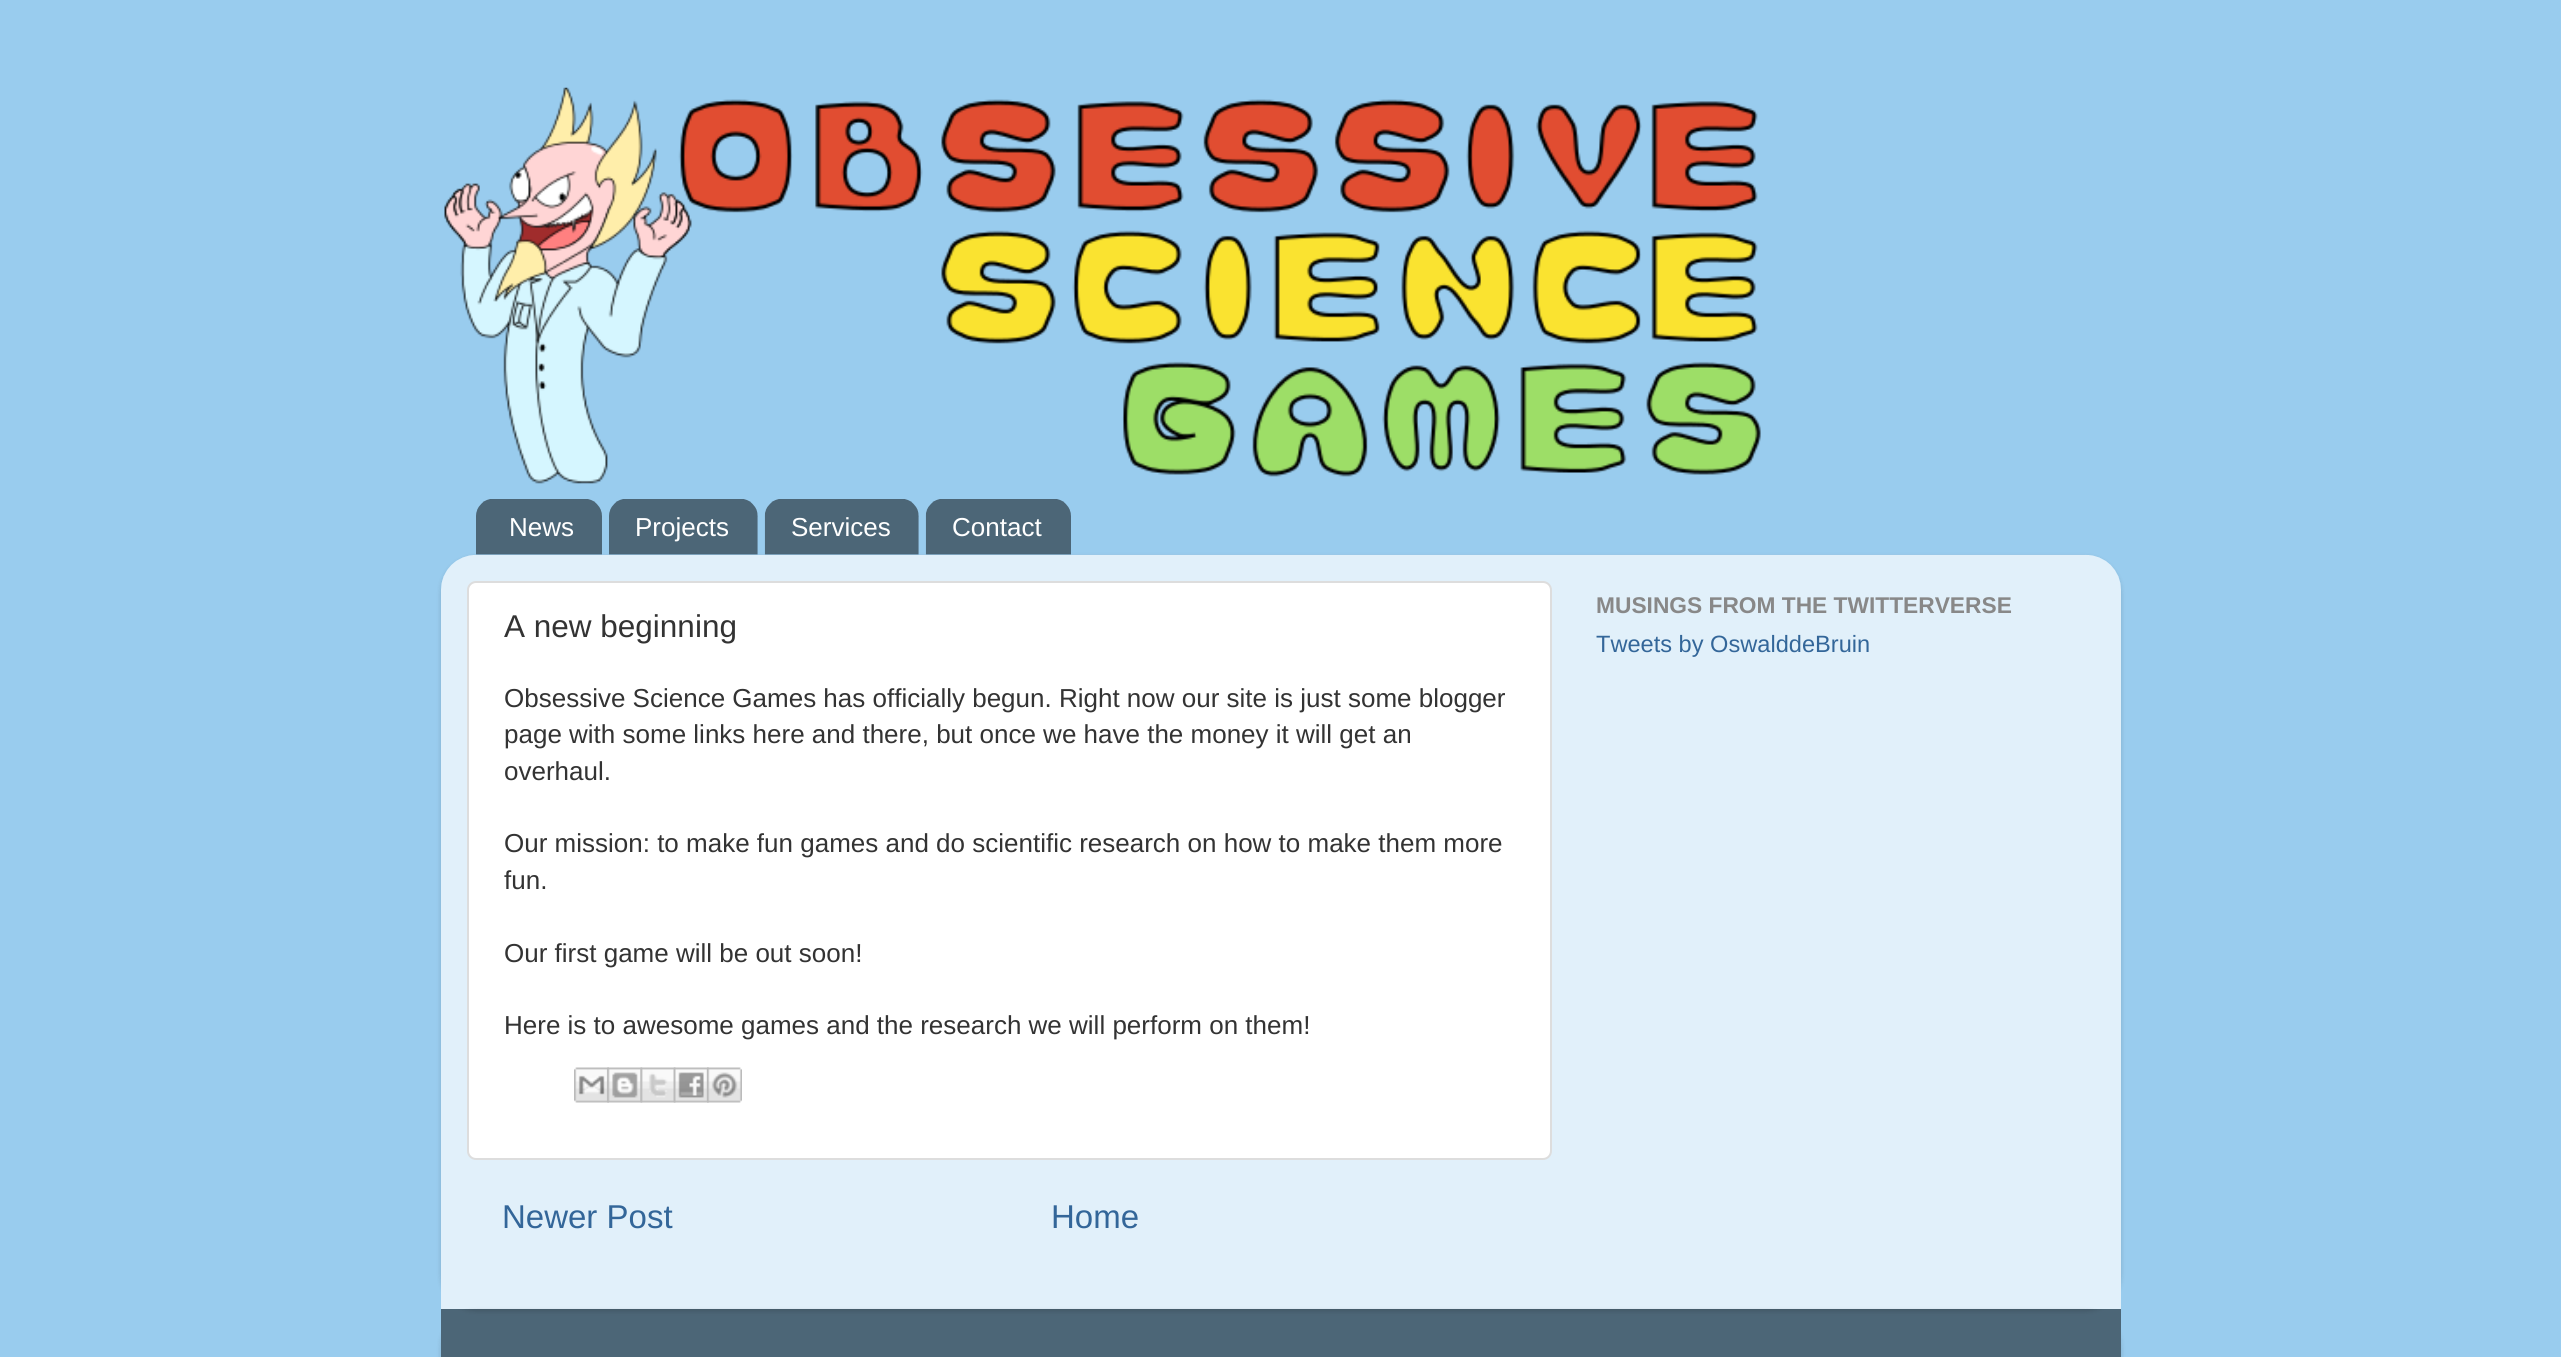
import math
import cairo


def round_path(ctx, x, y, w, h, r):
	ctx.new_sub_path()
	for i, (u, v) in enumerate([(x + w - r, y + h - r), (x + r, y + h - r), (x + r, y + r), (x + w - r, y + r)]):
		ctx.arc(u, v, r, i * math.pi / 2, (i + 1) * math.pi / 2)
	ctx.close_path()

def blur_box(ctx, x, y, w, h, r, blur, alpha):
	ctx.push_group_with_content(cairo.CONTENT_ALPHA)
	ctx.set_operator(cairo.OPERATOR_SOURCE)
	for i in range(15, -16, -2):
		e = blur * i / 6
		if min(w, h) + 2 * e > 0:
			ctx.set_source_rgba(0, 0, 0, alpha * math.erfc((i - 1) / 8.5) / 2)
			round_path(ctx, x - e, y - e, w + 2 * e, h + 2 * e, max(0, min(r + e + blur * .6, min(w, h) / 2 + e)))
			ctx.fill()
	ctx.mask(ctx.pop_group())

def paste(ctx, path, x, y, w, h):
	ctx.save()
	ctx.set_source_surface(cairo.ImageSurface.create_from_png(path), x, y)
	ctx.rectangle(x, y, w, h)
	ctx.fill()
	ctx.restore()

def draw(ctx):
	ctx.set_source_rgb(0.6, 0.8, 0.933)
	ctx.paint()
	paste(ctx, 'media/1.png', 444, 87, 1317, 397)
	paste(ctx, 'media/2.png', 476, 499, 126, 56)
	ctx.select_font_face('Liberation Sans')
	ctx.set_font_size(26)
	ctx.set_source_rgb(1, 1, 1)
	ctx.move_to(509, 536)
	ctx.show_text('News')
	paste(ctx, 'media/3.png', 609, 499, 149, 56)
	ctx.move_to(635, 536)
	ctx.show_text('Projects')
	paste(ctx, 'media/4.png', 764, 499, 155, 56)
	ctx.move_to(791, 536)
	ctx.show_text('Services')
	paste(ctx, 'media/5.png', 925, 499, 146, 56)
	ctx.move_to(952, 536)
	ctx.show_text('Contact')
	ctx.save()
	ctx.set_fill_rule(cairo.FILL_RULE_EVEN_ODD)
	ctx.new_path()
	ctx.move_to(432, 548)
	ctx.line_to(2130, 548)
	ctx.line_to(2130, 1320)
	ctx.line_to(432, 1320)
	ctx.close_path()
	ctx.move_to(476, 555)
	ctx.line_to(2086, 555)
	ctx.curve_to(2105.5, 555, 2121, 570.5, 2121, 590)
	ctx.line_to(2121, 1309)
	ctx.line_to(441, 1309)
	ctx.line_to(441, 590)
	ctx.curve_to(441, 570.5, 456.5, 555, 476, 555)
	ctx.close_path()
	ctx.clip()
	ctx.set_source_rgb(0, 0, 0)
	blur_box(ctx, 441, 557, 1680, 754, 35, 2.5, 0.15)
	ctx.restore()
	paste(ctx, 'media/6.png', 441, 554, 1680, 755)
	round_path(ctx, 468, 582, 1083, 577, 8)
	ctx.fill_preserve()
	ctx.set_source_rgb(0.867, 0.867, 0.867)
	ctx.stroke()
	ctx.set_font_size(31.5)
	ctx.set_source_rgb(0.2, 0.2, 0.2)
	ctx.move_to(504, 637)
	ctx.show_text('A new beginning')
	ctx.set_font_size(26)
	for x, y, s in [
		(504, 707, 'Obsessive Science Games has officially begun. Right now our site is just some blogger'),
		(504, 743, 'page with some links here and there, but once we have the money it will get an'),
		(504, 780, 'overhaul.'),
		(504, 852, 'Our mission: to make fun games and do scientific research on how to make them more'),
		(504, 889, 'fun.'),
		(504, 962, 'Our first game will be out soon!'),
		(504, 1034, 'Here is to awesome games and the research we will perform on them!'),
	]:
		ctx.move_to(x, y)
		ctx.show_text(s)
	paste(ctx, 'media/7.png', 574, 1067, 35, 36)
	paste(ctx, 'media/8.png', 607, 1067, 36, 36)
	paste(ctx, 'media/9.png', 640, 1067, 36, 36)
	paste(ctx, 'media/10.png', 673, 1067, 36, 36)
	paste(ctx, 'media/11.png', 707, 1067, 35, 36)
	ctx.set_font_size(33)
	ctx.set_source_rgb(0.2, 0.4, 0.6)
	ctx.move_to(502, 1228)
	ctx.show_text('Newer Post')
	ctx.move_to(1051, 1228)
	ctx.show_text('Home')
	ctx.select_font_face('Liberation Sans', cairo.FONT_SLANT_NORMAL, cairo.FONT_WEIGHT_BOLD)
	ctx.set_font_size(22.75)
	ctx.set_source_rgb(0.533, 0.533, 0.533)
	ctx.move_to(1596, 613)
	ctx.show_text('MUSINGS FROM THE TWITTERVERSE')
	ctx.select_font_face('Liberation Sans')
	ctx.set_font_size(23.6)
	ctx.set_source_rgb(0.2, 0.4, 0.6)
	ctx.move_to(1596, 652)
	ctx.show_text('Tweets by OswalddeBruin')
	ctx.save()
	ctx.set_fill_rule(cairo.FILL_RULE_EVEN_ODD)
	ctx.new_path()
	ctx.move_to(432, 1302)
	ctx.line_to(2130, 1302)
	ctx.line_to(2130, 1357)
	ctx.line_to(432, 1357)
	ctx.close_path()
	ctx.move_to(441, 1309)
	ctx.line_to(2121, 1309)
	ctx.line_to(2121, 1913)
	ctx.curve_to(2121, 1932.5, 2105.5, 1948, 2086, 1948)
	ctx.line_to(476, 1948)
	ctx.curve_to(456.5, 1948, 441, 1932.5, 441, 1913)
	ctx.close_path()
	ctx.clip()
	ctx.set_source_rgb(0, 0, 0)
	blur_box(ctx, 441, 1311, 1680, 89, 35, 2.5, 0.15)
	ctx.restore()
	ctx.set_source_rgba(0, 0, 0, 0.5)
	ctx.rectangle(441, 1309, 1680, 48)
	ctx.fill()


surface = cairo.ImageSurface(cairo.FORMAT_RGB24, 2561, 1357)
ctx = cairo.Context(surface)
options = cairo.FontOptions()
options.set_hint_metrics(cairo.HINT_METRICS_OFF)
options.set_hint_style(cairo.HINT_STYLE_NONE)
ctx.set_font_options(options)
ctx.set_miter_limit(4)
draw(ctx)
surface.write_to_png('image.png')
